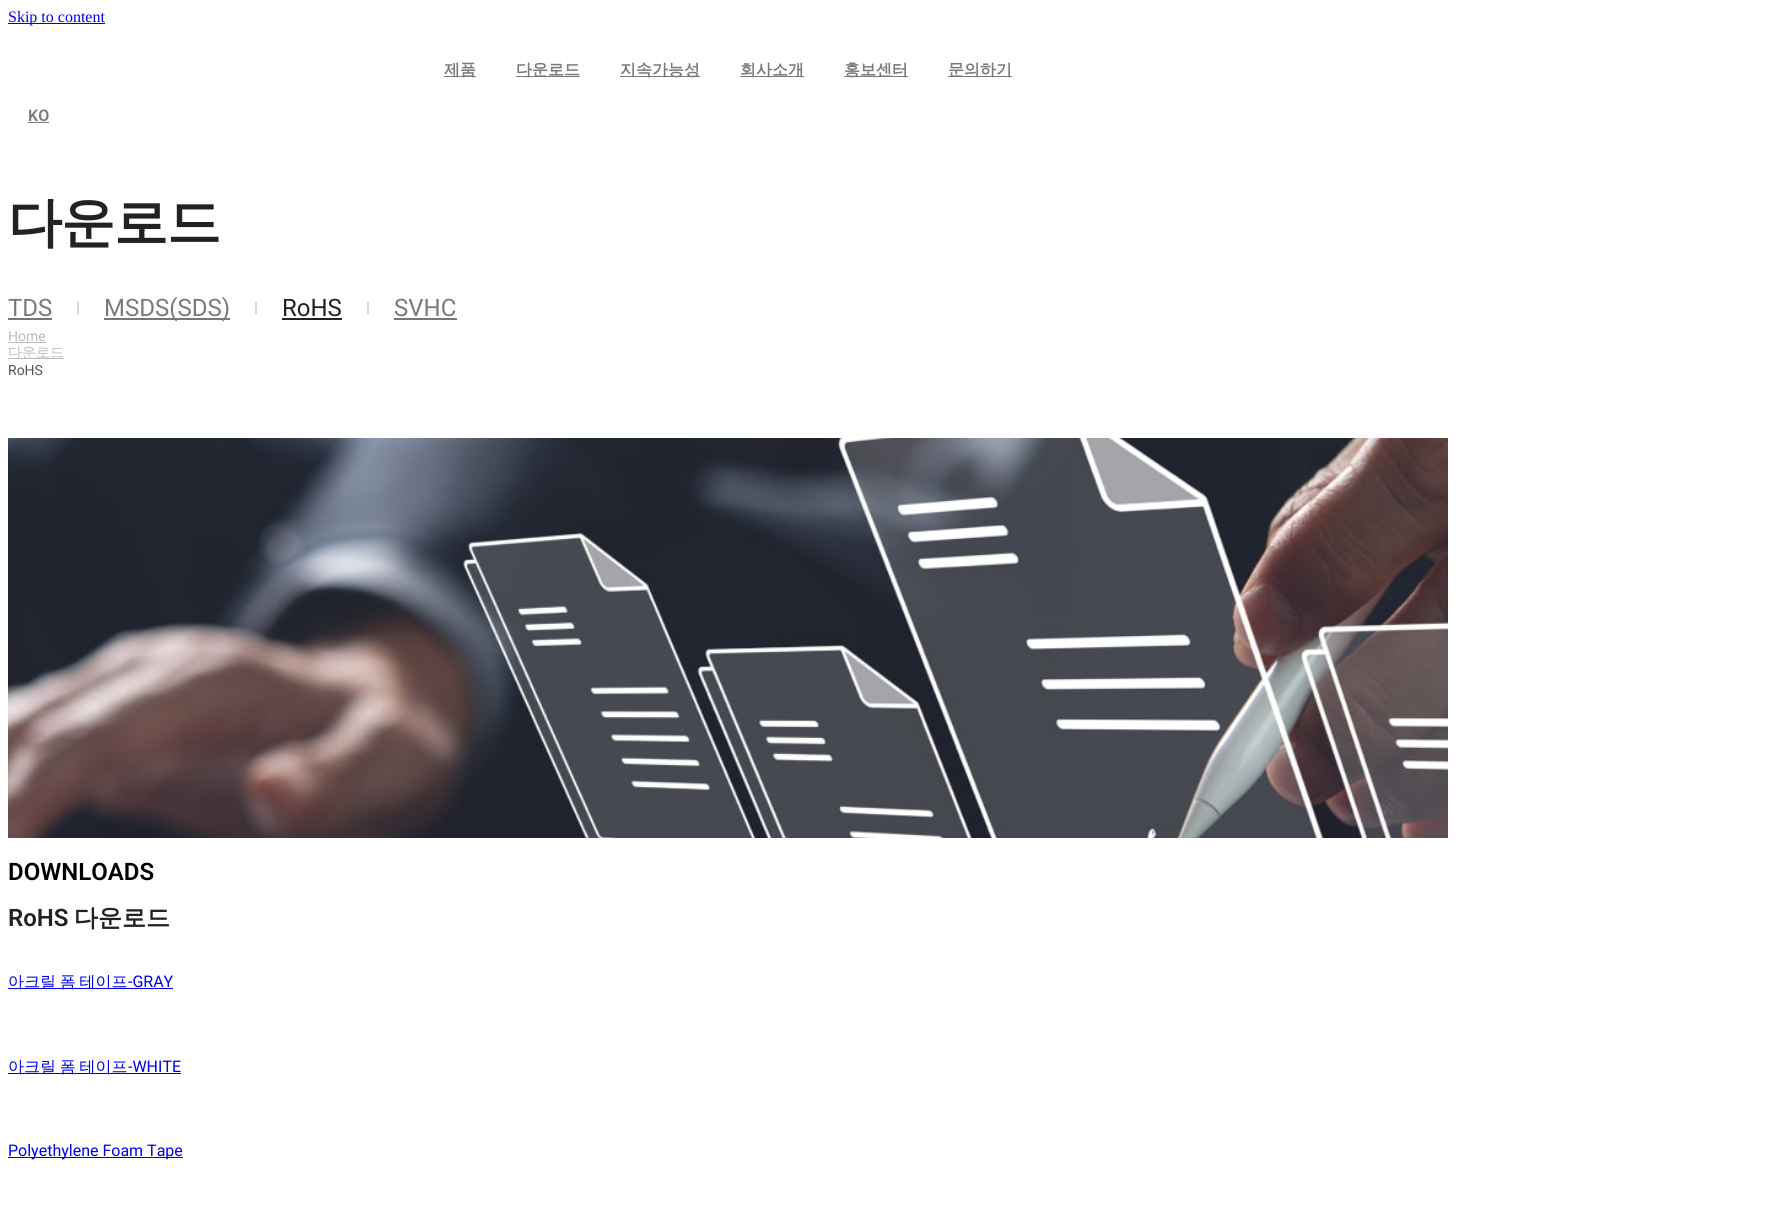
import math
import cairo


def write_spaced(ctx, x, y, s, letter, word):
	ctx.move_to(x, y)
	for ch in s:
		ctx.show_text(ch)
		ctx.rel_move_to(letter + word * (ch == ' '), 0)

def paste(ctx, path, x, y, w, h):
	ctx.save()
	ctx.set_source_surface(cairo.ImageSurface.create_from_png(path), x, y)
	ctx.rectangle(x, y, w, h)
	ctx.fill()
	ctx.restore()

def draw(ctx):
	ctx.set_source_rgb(1, 1, 1)
	ctx.paint()
	ctx.set_source_rgb(0, 0, 0.933)
	ctx.rectangle(8, 23, 97, 1)
	ctx.fill()
	ctx.select_font_face('Liberation Serif')
	ctx.set_font_size(16)
	ctx.move_to(8, 22)
	ctx.show_text('Skip to content')
	ctx.set_source_rgb(0.478, 0.478, 0.478)
	ctx.rectangle(444, 76, 32, 1)
	ctx.fill()
	ctx.select_font_face('WenQuanYi Zen Hei', cairo.FONT_SLANT_NORMAL, cairo.FONT_WEIGHT_BOLD)
	ctx.move_to(444, 75)
	ctx.show_text('제품')
	ctx.rectangle(516, 76, 64, 1)
	ctx.fill()
	ctx.move_to(516, 75)
	ctx.show_text('다운로드')
	ctx.rectangle(620, 76, 80, 1)
	ctx.fill()
	ctx.move_to(620, 75)
	ctx.show_text('지속가능성')
	ctx.rectangle(740, 76, 64, 1)
	ctx.fill()
	ctx.move_to(740, 75)
	ctx.show_text('회사소개')
	ctx.rectangle(844, 76, 64, 1)
	ctx.fill()
	ctx.move_to(844, 75)
	ctx.show_text('홍보센터')
	ctx.rectangle(948, 76, 64, 1)
	ctx.fill()
	ctx.move_to(948, 75)
	ctx.show_text('문의하기')
	ctx.select_font_face('Roboto SemiBold')
	ctx.move_to(28, 121)
	ctx.show_text('KO')
	ctx.rectangle(28, 122, 21, 1)
	ctx.fill()
	ctx.select_font_face('WenQuanYi Zen Hei', cairo.FONT_SLANT_NORMAL, cairo.FONT_WEIGHT_BOLD)
	ctx.set_font_size(54)
	ctx.set_source_rgb(0.133, 0.133, 0.133)
	write_spaced(ctx, 8, 241, '다운로드', -1, 0)
	ctx.select_font_face('Roboto')
	ctx.set_font_size(24)
	ctx.set_source_rgb(0.478, 0.478, 0.478)
	ctx.move_to(8, 316)
	ctx.show_text('TDS')
	ctx.set_source_rgb(0.467, 0.467, 0.467)
	ctx.rectangle(8, 318, 44, 2)
	ctx.fill()
	ctx.set_source_rgb(0.851, 0.851, 0.851)
	ctx.rectangle(77, 302, 2, 12)
	ctx.fill()
	ctx.set_source_rgb(0.467, 0.467, 0.467)
	ctx.rectangle(104, 318, 126, 2)
	ctx.fill()
	ctx.set_source_rgb(0.478, 0.478, 0.478)
	ctx.move_to(104, 316)
	ctx.show_text('MSDS(SDS)')
	ctx.set_source_rgb(0.851, 0.851, 0.851)
	ctx.rectangle(255, 302, 2, 12)
	ctx.fill()
	ctx.set_source_rgb(0.133, 0.133, 0.133)
	ctx.move_to(282, 316)
	ctx.show_text('RoHS')
	ctx.rectangle(282, 318, 60, 2)
	ctx.fill()
	ctx.set_source_rgb(0.851, 0.851, 0.851)
	ctx.rectangle(367, 302, 2, 12)
	ctx.fill()
	ctx.set_source_rgb(0.478, 0.478, 0.478)
	ctx.move_to(394, 316)
	ctx.show_text('SVHC')
	ctx.set_source_rgb(0.467, 0.467, 0.467)
	ctx.rectangle(394, 318, 63, 2)
	ctx.fill()
	ctx.set_font_size(14)
	ctx.set_source_rgb(0.733, 0.733, 0.733)
	ctx.move_to(8, 341)
	ctx.show_text('Home')
	ctx.rectangle(8, 342, 38, 1)
	ctx.fill()
	ctx.rectangle(8, 358, 56, 1)
	ctx.fill()
	ctx.select_font_face('WenQuanYi Zen Hei Medium')
	ctx.move_to(8, 357)
	ctx.show_text('다운로드')
	ctx.select_font_face('Roboto')
	ctx.set_source_rgb(0.333, 0.333, 0.333)
	ctx.move_to(8, 375)
	ctx.show_text('RoHS')
	paste(ctx, 'media/1.png', 8, 438, 1440, 400)
	ctx.select_font_face('Roboto SemiBold')
	ctx.set_font_size(24)
	ctx.set_source_rgb(0, 0, 0)
	ctx.move_to(8, 880)
	ctx.show_text('DOWNLOADS')
	ctx.set_source_rgb(0.133, 0.133, 0.133)
	ctx.move_to(8, 926)
	ctx.show_text('RoHS')
	ctx.select_font_face('WenQuanYi Zen Hei', cairo.FONT_SLANT_NORMAL, cairo.FONT_WEIGHT_BOLD)
	ctx.move_to(74, 926)
	ctx.show_text('다운로드')
	ctx.set_source_rgb(0, 0, 0.933)
	ctx.rectangle(8, 988, 165, 1)
	ctx.fill()
	ctx.select_font_face('WenQuanYi Zen Hei Medium')
	ctx.set_font_size(16)
	write_spaced(ctx, 8, 987, '아크릴 폼 테이프', 0, -1)
	ctx.select_font_face('Roboto')
	ctx.move_to(128, 987)
	ctx.show_text('-GRAY')
	ctx.rectangle(8, 1073, 173, 1)
	ctx.fill()
	ctx.select_font_face('WenQuanYi Zen Hei Medium')
	write_spaced(ctx, 8, 1072, '아크릴 폼 테이프', 0, -1)
	ctx.select_font_face('Roboto')
	ctx.move_to(128, 1072)
	ctx.show_text('-WHITE')
	ctx.rectangle(8, 1157, 175, 1)
	ctx.fill()
	ctx.move_to(8, 1156)
	ctx.show_text('Polyethylene Foam Tape')


surface = cairo.ImageSurface(cairo.FORMAT_RGB24, 1781, 1207)
ctx = cairo.Context(surface)
options = cairo.FontOptions()
options.set_hint_metrics(cairo.HINT_METRICS_OFF)
options.set_hint_style(cairo.HINT_STYLE_NONE)
ctx.set_font_options(options)
ctx.set_miter_limit(4)
draw(ctx)
surface.write_to_png('image.png')
